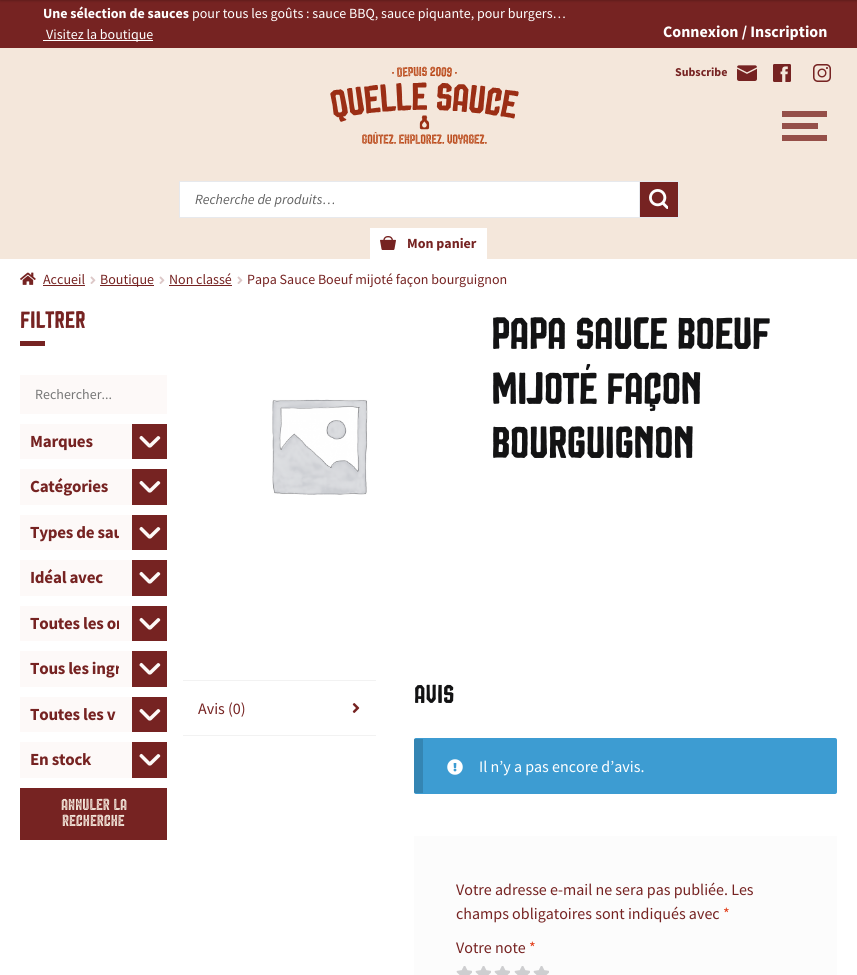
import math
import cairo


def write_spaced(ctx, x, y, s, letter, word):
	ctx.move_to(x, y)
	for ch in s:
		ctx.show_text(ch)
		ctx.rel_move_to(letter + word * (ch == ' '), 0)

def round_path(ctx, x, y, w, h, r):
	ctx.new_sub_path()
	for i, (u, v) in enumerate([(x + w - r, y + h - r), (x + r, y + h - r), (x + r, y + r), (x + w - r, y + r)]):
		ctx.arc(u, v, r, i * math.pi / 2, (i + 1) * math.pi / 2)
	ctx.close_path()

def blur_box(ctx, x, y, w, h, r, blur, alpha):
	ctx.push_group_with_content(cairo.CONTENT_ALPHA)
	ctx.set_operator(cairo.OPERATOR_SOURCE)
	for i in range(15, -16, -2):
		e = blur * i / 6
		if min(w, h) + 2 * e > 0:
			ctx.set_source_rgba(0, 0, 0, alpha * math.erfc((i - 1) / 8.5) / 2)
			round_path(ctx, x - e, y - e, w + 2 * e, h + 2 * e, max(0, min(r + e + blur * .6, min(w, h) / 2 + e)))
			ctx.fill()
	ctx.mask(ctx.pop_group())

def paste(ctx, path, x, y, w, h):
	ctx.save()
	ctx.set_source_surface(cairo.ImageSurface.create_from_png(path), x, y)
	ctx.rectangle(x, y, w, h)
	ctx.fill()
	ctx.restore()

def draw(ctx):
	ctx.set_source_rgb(1, 1, 1)
	ctx.paint()
	ctx.set_source_rgb(0.463, 0.137, 0.133)
	ctx.rectangle(0, 0, 857, 48)
	ctx.fill()
	ctx.select_font_face('Source Sans Pro', cairo.FONT_SLANT_NORMAL, cairo.FONT_WEIGHT_BOLD)
	ctx.set_font_size(14)
	ctx.set_source_rgb(1, 1, 1)
	ctx.move_to(43, 18)
	ctx.show_text('Une sélection de sauces')
	ctx.select_font_face('Source Sans Pro')
	ctx.move_to(192, 18)
	ctx.show_text('pour tous les goûts : sauce BBQ, sauce piquante, pour burgers…')
	ctx.rectangle(43, 40, 110, 1)
	ctx.fill()
	ctx.move_to(46, 39)
	ctx.show_text('Visitez la boutique')
	ctx.set_source_rgb(0, 0, 0)
	blur_box(ctx, 0, -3, 857, 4, 0, 1, 0.2)
	ctx.set_source_rgb(0.957, 0.906, 0.859)
	ctx.rectangle(0, 48, 857, 211)
	ctx.fill()
	ctx.select_font_face('Source Sans Pro', cairo.FONT_SLANT_NORMAL, cairo.FONT_WEIGHT_BOLD)
	ctx.set_font_size(16)
	ctx.set_source_rgb(1, 1, 1)
	ctx.move_to(663, 37)
	ctx.show_text('Connexion / Inscription')
	ctx.set_font_size(12)
	ctx.set_source_rgb(0.463, 0.137, 0.133)
	ctx.move_to(675, 76)
	ctx.show_text('Subscribe')
	paste(ctx, 'media/1.png', 737, 65, 20, 16)
	paste(ctx, 'media/2.png', 773, 64, 18, 18)
	paste(ctx, 'media/3.png', 813, 64, 18, 18)
	ctx.set_source_rgb(1, 1, 1)
	ctx.rectangle(370, 228, 117, 31)
	ctx.fill()
	paste(ctx, 'media/4.png', 380, 236, 16, 14)
	ctx.set_font_size(14)
	ctx.set_source_rgb(0.463, 0.137, 0.133)
	ctx.move_to(407, 248)
	ctx.show_text('Mon panier')
	ctx.set_source_rgb(0.584, 0.31, 0.282)
	ctx.rectangle(782, 111, 45, 6)
	ctx.rectangle(782, 123, 36, 6)
	ctx.rectangle(782, 135, 45, 6)
	ctx.fill()
	paste(ctx, 'media/5.png', 330, 66, 189, 78)
	ctx.set_source_rgb(1, 1, 1)
	ctx.rectangle(180, 182, 459, 35)
	ctx.fill()
	ctx.rectangle(179.5, 181.5, 499, 36)
	ctx.set_source_rgb(0.906, 0.914, 0.929)
	ctx.set_line_width(1)
	ctx.stroke()
	ctx.set_source_rgb(0.463, 0.137, 0.133)
	ctx.rectangle(639.5, 181.5, 39, 36)
	ctx.fill_preserve()
	ctx.set_source_rgb(0.906, 0.914, 0.929)
	ctx.stroke()
	ctx.select_font_face('Source Sans Pro', cairo.FONT_SLANT_ITALIC)
	ctx.set_source_rgb(0.38, 0.38, 0.38)
	ctx.move_to(195, 204)
	ctx.show_text('Recherche de produits…')
	paste(ctx, 'media/6.png', 649, 189, 19, 20)
	paste(ctx, 'media/7.png', 20, 272, 16, 13)
	ctx.select_font_face('Source Sans Pro')
	ctx.set_source_rgb(0.463, 0.137, 0.133)
	ctx.move_to(43, 284)
	ctx.show_text('Accueil')
	ctx.rectangle(43, 285, 42, 1)
	ctx.fill()
	paste(ctx, 'media/8.png', 90, 276, 6, 8)
	ctx.rectangle(100, 285, 54, 1)
	ctx.fill()
	ctx.move_to(100, 284)
	ctx.show_text('Boutique')
	paste(ctx, 'media/8.png', 159, 276, 6, 8)
	ctx.move_to(169, 284)
	ctx.show_text('Non classé')
	ctx.rectangle(169, 285, 63, 1)
	ctx.fill()
	paste(ctx, 'media/8.png', 237, 276, 6, 8)
	ctx.move_to(247, 284)
	ctx.show_text('Papa Sauce Boeuf mijoté façon bourguignon')
	ctx.select_font_face('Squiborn')
	ctx.set_font_size(24)
	ctx.move_to(20, 328)
	ctx.show_text('Filtrer')
	ctx.rectangle(20, 341, 25, 5)
	ctx.fill()
	ctx.set_source_rgb(0.992, 0.976, 0.969)
	ctx.rectangle(20, 375, 147, 39)
	ctx.fill()
	ctx.select_font_face('Source Sans Pro')
	ctx.set_font_size(14)
	ctx.set_source_rgb(0.467, 0.467, 0.467)
	ctx.move_to(35, 399)
	ctx.show_text('Rechercher...')
	ctx.set_source_rgb(0.992, 0.976, 0.969)
	ctx.rectangle(20, 424, 112, 35)
	ctx.fill()
	paste(ctx, 'media/9.png', 132, 424, 35, 35)
	ctx.select_font_face('Source Sans Pro', cairo.FONT_SLANT_NORMAL, cairo.FONT_WEIGHT_BOLD)
	ctx.set_font_size(17)
	ctx.set_source_rgb(0.463, 0.137, 0.133)
	write_spaced(ctx, 30, 447, 'Marques', -0.25, 0)
	ctx.set_source_rgb(0.992, 0.976, 0.969)
	ctx.rectangle(20, 469, 112, 36)
	ctx.fill()
	paste(ctx, 'media/10.png', 132, 469, 35, 36)
	ctx.set_source_rgb(0.463, 0.137, 0.133)
	write_spaced(ctx, 30, 492, 'Catégories', -0.25, 0)
	ctx.set_source_rgb(0.992, 0.976, 0.969)
	ctx.rectangle(20, 515, 112, 35)
	ctx.fill()
	paste(ctx, 'media/9.png', 132, 515, 35, 35)
	ctx.save()
	ctx.rectangle(30, 520, 89, 25)
	ctx.clip()
	ctx.set_source_rgb(0.463, 0.137, 0.133)
	write_spaced(ctx, 30, 538, 'Types de sau', -0.25, 0)
	ctx.restore()
	ctx.rectangle(20, 560, 112, 36)
	ctx.fill()
	paste(ctx, 'media/10.png', 132, 560, 35, 36)
	ctx.set_source_rgb(0.463, 0.137, 0.133)
	write_spaced(ctx, 30, 583, 'Idéal avec', -0.25, 0)
	ctx.set_source_rgb(0.992, 0.976, 0.969)
	ctx.rectangle(20, 606, 112, 35)
	ctx.fill()
	paste(ctx, 'media/9.png', 132, 606, 35, 35)
	ctx.save()
	ctx.rectangle(30, 611, 89, 25)
	ctx.clip()
	ctx.set_source_rgb(0.463, 0.137, 0.133)
	write_spaced(ctx, 30, 629, 'Toutes les or', -0.25, 0)
	ctx.restore()
	ctx.rectangle(20, 651, 112, 36)
	ctx.fill()
	paste(ctx, 'media/10.png', 132, 651, 35, 36)
	ctx.save()
	ctx.rectangle(30, 656, 89, 26)
	ctx.clip()
	ctx.set_source_rgb(0.463, 0.137, 0.133)
	write_spaced(ctx, 30, 674, 'Tous les ingr', -0.25, 0)
	ctx.restore()
	ctx.rectangle(20, 697, 112, 35)
	ctx.fill()
	paste(ctx, 'media/9.png', 132, 697, 35, 35)
	ctx.set_source_rgb(0.463, 0.137, 0.133)
	write_spaced(ctx, 30, 720, 'Toutes les v', -0.25, 0)
	ctx.set_source_rgb(0.992, 0.976, 0.969)
	ctx.rectangle(20, 742, 112, 36)
	ctx.fill()
	paste(ctx, 'media/10.png', 132, 742, 35, 36)
	ctx.set_source_rgb(0.463, 0.137, 0.133)
	write_spaced(ctx, 30, 765, 'En stock', -0.25, 0)
	ctx.rectangle(20, 788, 147, 52)
	ctx.fill()
	ctx.select_font_face('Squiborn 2')
	ctx.set_font_size(16)
	ctx.set_source_rgb(0.957, 0.906, 0.859)
	ctx.move_to(61, 810)
	ctx.show_text('ANNULER LA')
	ctx.move_to(62, 826)
	ctx.show_text('RECHERCHE')
	paste(ctx, 'media/11.png', 272, 399, 96, 96)
	ctx.select_font_face('Squiborn')
	ctx.set_font_size(45)
	ctx.set_source_rgb(0.075, 0.075, 0.082)
	for x, y, s in [
		(491, 349, 'Papa Sauce Boeuf'),
		(491, 404, 'mijoté façon'),
		(491, 458, 'bourguignon'),
	]:
		write_spaced(ctx, x, y, s, -1, 0)
	ctx.set_source_rgb(0.949, 0.949, 0.949)
	ctx.rectangle(183, 680, 193, 1)
	ctx.fill()
	ctx.rectangle(183, 735, 193, 1)
	ctx.fill()
	ctx.select_font_face('Source Sans Pro')
	ctx.set_font_size(16)
	ctx.set_source_rgb(0.463, 0.137, 0.133)
	ctx.move_to(198, 714)
	ctx.show_text('Avis (0)')
	paste(ctx, 'media/12.png', 352, 703, 8, 10)
	ctx.select_font_face('Squiborn')
	ctx.set_font_size(26)
	ctx.set_source_rgb(0.075, 0.075, 0.082)
	ctx.move_to(414, 703)
	ctx.show_text('Avis')
	ctx.set_source_rgb(0.239, 0.612, 0.824)
	round_path(ctx, 414, 738, 423, 56, 2)
	ctx.fill()
	ctx.set_source_rgba(0, 0, 0, 0.15)
	ctx.rectangle(414, 739, 9, 54)
	ctx.fill()
	paste(ctx, 'media/13.png', 447, 759, 16, 16)
	ctx.select_font_face('Source Sans Pro')
	ctx.set_font_size(16)
	ctx.set_source_rgb(1, 1, 1)
	ctx.move_to(479, 772)
	ctx.show_text('Il n’y a pas encore d’avis.')
	ctx.set_source_rgb(0.988, 0.988, 0.988)
	ctx.rectangle(414, 836, 423, 139)
	ctx.fill()
	ctx.set_source_rgb(0.463, 0.137, 0.133)
	ctx.move_to(456, 895)
	ctx.show_text('Votre adresse e-mail ne sera pas publiée. Les')
	ctx.move_to(456, 919)
	ctx.show_text('champs obligatoires sont indiqués avec')
	ctx.set_source_rgb(0.886, 0.251, 0.11)
	ctx.move_to(723, 919)
	ctx.show_text('*')
	ctx.set_source_rgb(0.463, 0.137, 0.133)
	ctx.move_to(456, 953)
	ctx.show_text('Votre note')
	ctx.set_source_rgb(0.886, 0.251, 0.11)
	ctx.move_to(529, 953)
	ctx.show_text('*')
	paste(ctx, 'media/14.png', 456, 966, 16, 9)
	paste(ctx, 'media/14.png', 475, 966, 16, 9)
	paste(ctx, 'media/14.png', 494, 966, 16, 9)
	paste(ctx, 'media/14.png', 514, 966, 16, 9)
	paste(ctx, 'media/14.png', 533, 966, 16, 9)


surface = cairo.ImageSurface(cairo.FORMAT_RGB24, 857, 975)
ctx = cairo.Context(surface)
options = cairo.FontOptions()
options.set_hint_metrics(cairo.HINT_METRICS_OFF)
options.set_hint_style(cairo.HINT_STYLE_NONE)
ctx.set_font_options(options)
ctx.set_miter_limit(4)
draw(ctx)
surface.write_to_png('image.png')
